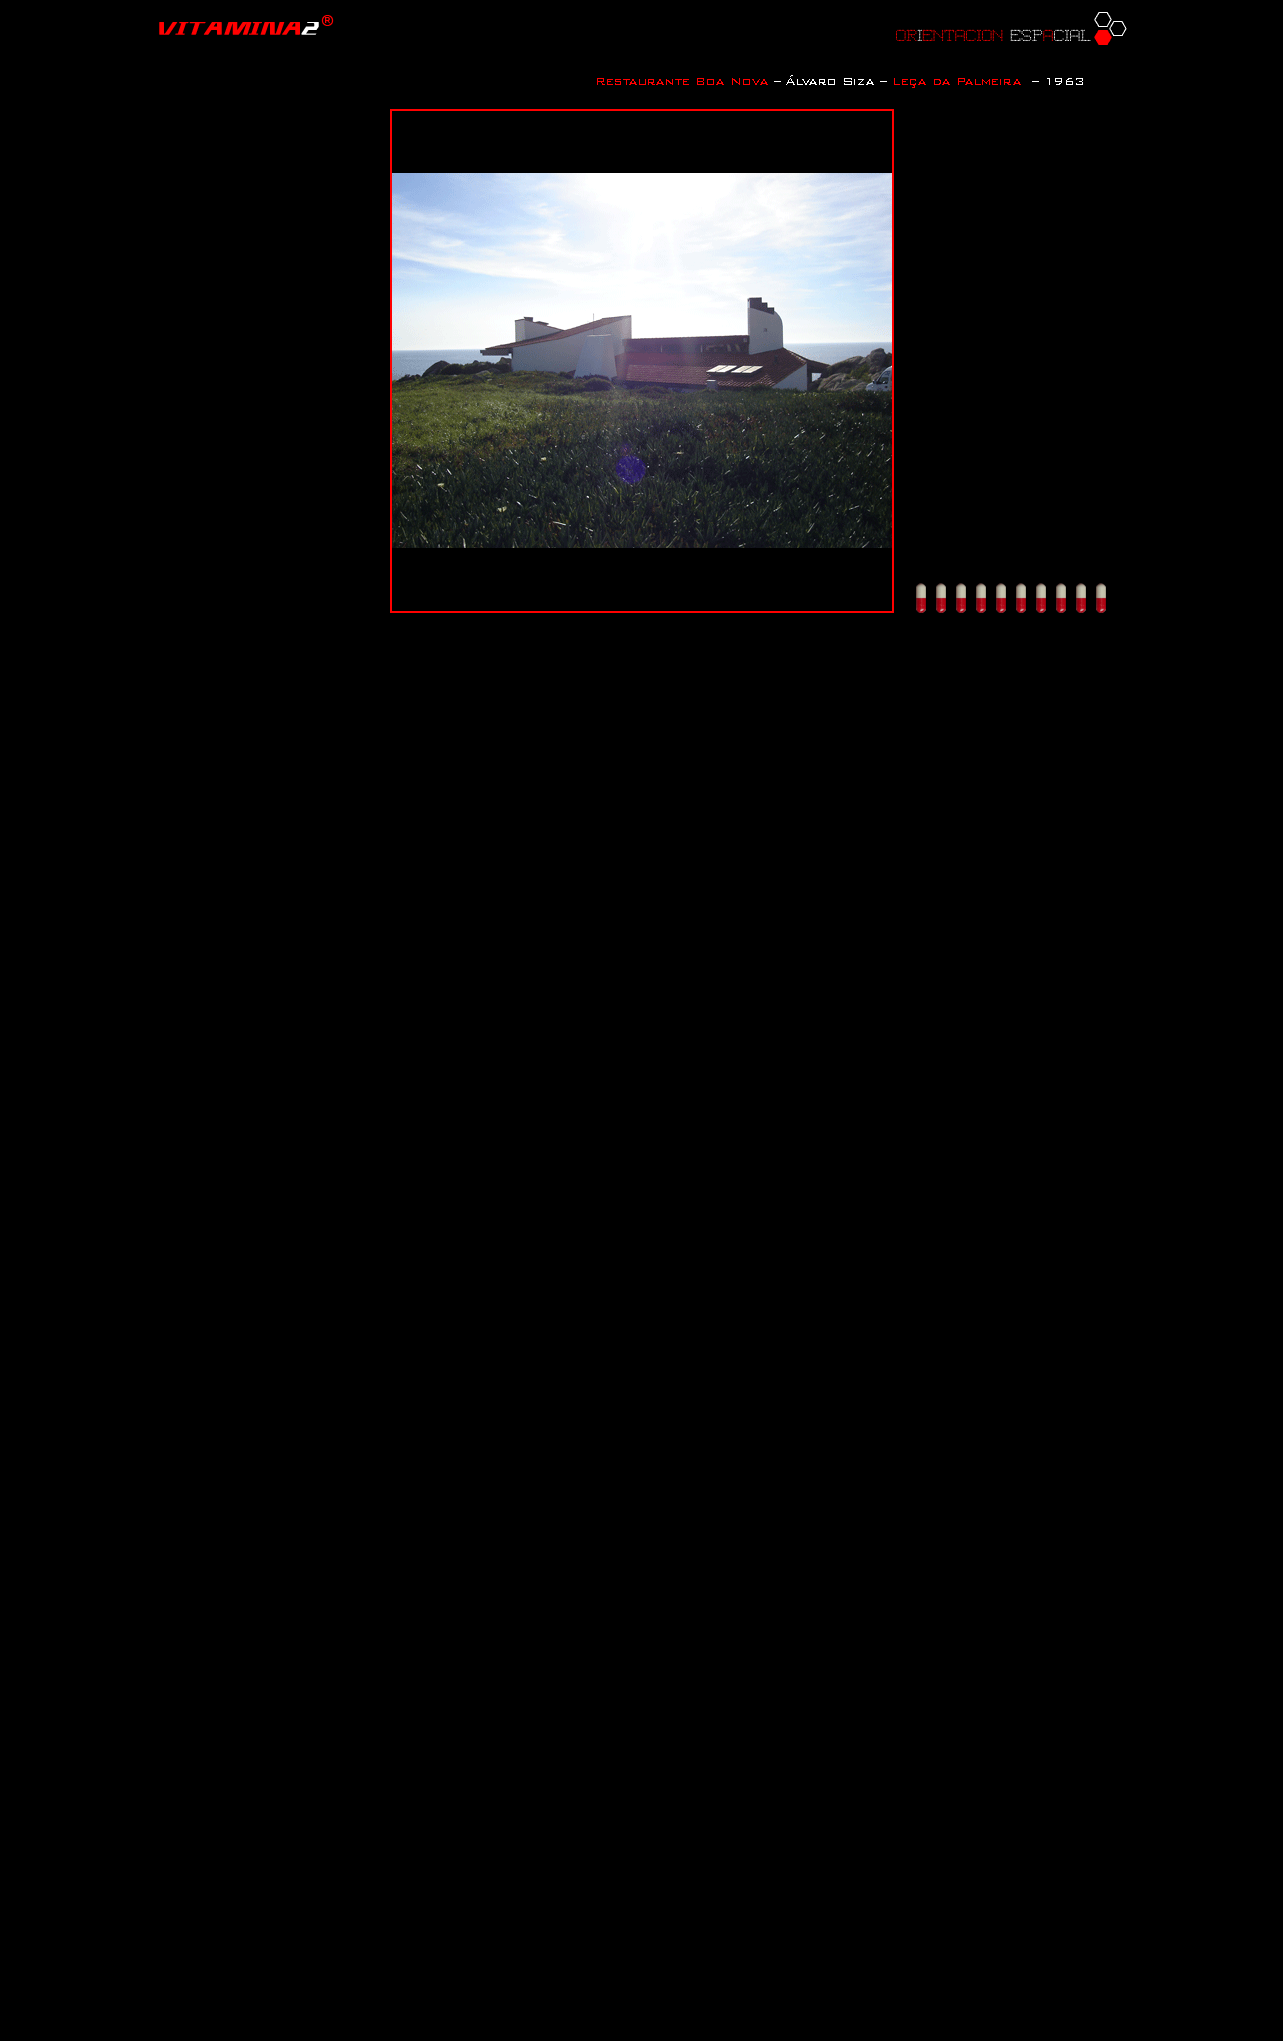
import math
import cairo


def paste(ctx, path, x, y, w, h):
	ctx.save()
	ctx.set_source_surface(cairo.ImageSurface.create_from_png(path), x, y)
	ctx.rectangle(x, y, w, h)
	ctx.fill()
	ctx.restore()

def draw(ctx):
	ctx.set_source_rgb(0, 0, 0)
	ctx.paint()
	paste(ctx, 'media/1.png', 159, 15, 175, 20)
	paste(ctx, 'media/2.png', 896, 29, 195, 12)
	paste(ctx, 'media/3.png', 1094, 12, 33, 33)
	paste(ctx, 'media/4.png', 597, 75, 486, 13)
	ctx.rectangle(390.5, 109.5, 503, 503)
	ctx.set_source_rgb(1, 0, 0)
	ctx.set_line_width(1)
	ctx.stroke()
	ctx.rectangle(391.5, 110.5, 501, 501)
	ctx.stroke()
	paste(ctx, 'media/5.png', 392, 173, 500, 375)
	paste(ctx, 'media/6.png', 916, 583, 10, 30)
	paste(ctx, 'media/6.png', 936, 583, 10, 30)
	paste(ctx, 'media/6.png', 956, 583, 10, 30)
	paste(ctx, 'media/6.png', 976, 583, 10, 30)
	paste(ctx, 'media/6.png', 996, 583, 10, 30)
	paste(ctx, 'media/6.png', 1016, 583, 10, 30)
	paste(ctx, 'media/6.png', 1036, 583, 10, 30)
	paste(ctx, 'media/6.png', 1056, 583, 10, 30)
	paste(ctx, 'media/6.png', 1076, 583, 10, 30)
	paste(ctx, 'media/6.png', 1096, 583, 10, 30)


surface = cairo.ImageSurface(cairo.FORMAT_RGB24, 1283, 2041)
ctx = cairo.Context(surface)
options = cairo.FontOptions()
options.set_hint_metrics(cairo.HINT_METRICS_OFF)
options.set_hint_style(cairo.HINT_STYLE_NONE)
ctx.set_font_options(options)
ctx.set_miter_limit(4)
draw(ctx)
surface.write_to_png('image.png')
